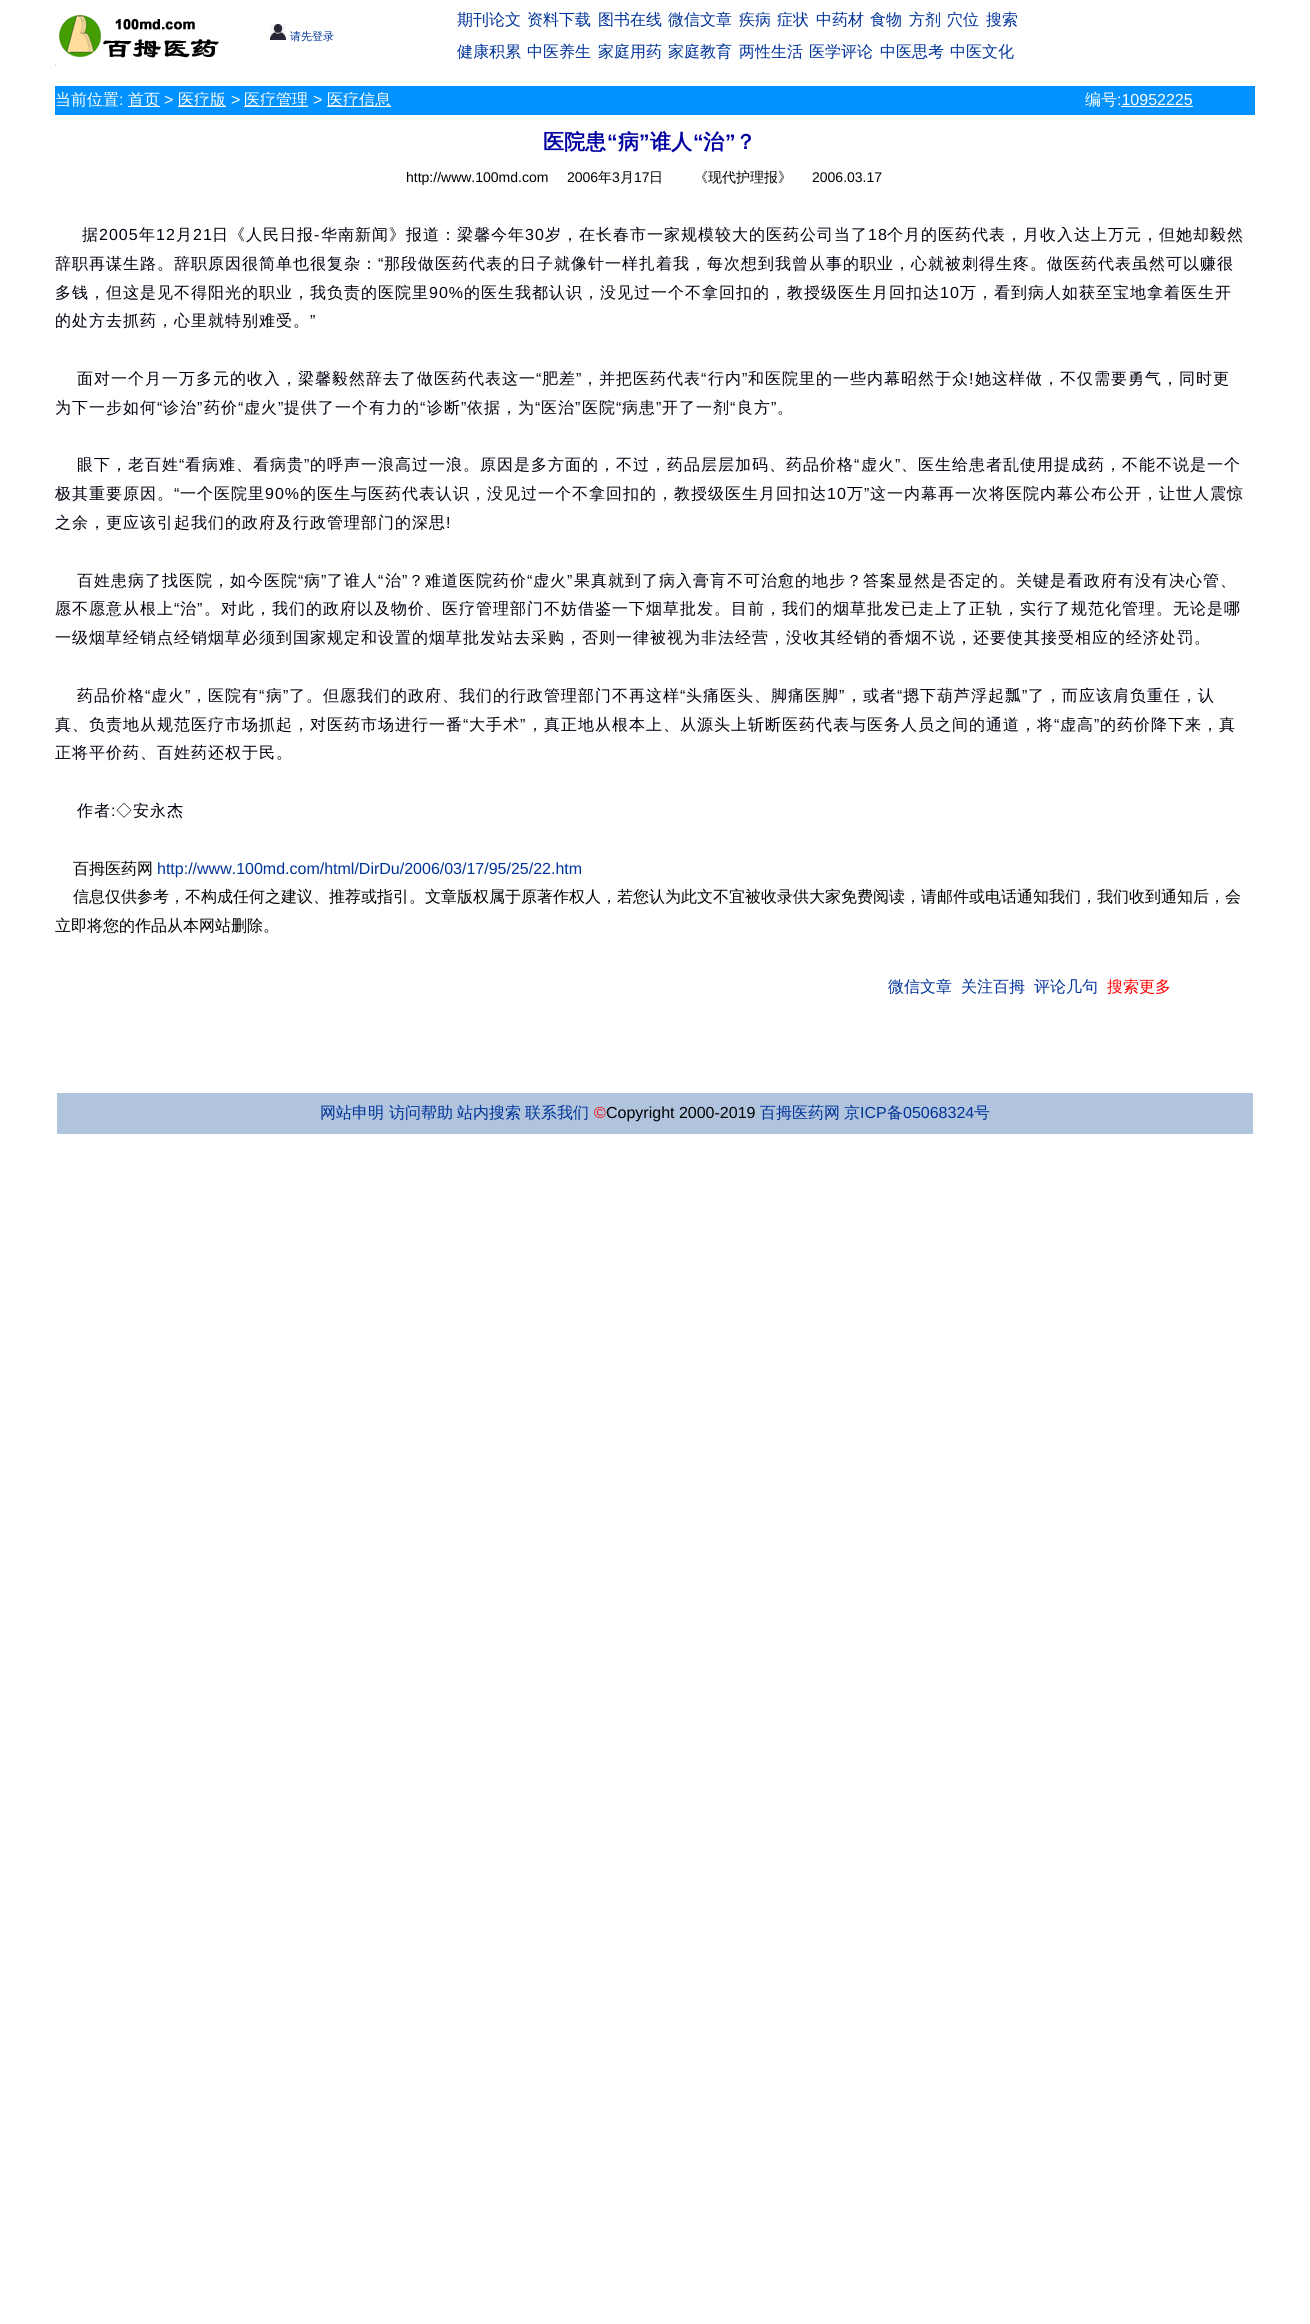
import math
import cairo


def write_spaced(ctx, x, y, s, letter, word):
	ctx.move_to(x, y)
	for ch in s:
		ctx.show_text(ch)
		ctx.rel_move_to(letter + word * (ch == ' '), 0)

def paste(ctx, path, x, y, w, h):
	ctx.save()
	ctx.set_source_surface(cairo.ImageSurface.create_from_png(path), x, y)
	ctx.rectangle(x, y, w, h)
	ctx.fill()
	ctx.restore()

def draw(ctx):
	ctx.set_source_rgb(1, 1, 1)
	ctx.paint()
	paste(ctx, 'media/1.png', 55, 15, 164, 53)
	paste(ctx, 'media/2.png', 270, 24, 16, 16)
	ctx.select_font_face('WenQuanYi Zen Hei Medium')
	ctx.set_font_size(11)
	ctx.set_source_rgb(0, 0.2, 0.6)
	ctx.move_to(290, 40)
	ctx.show_text('请先登录')
	ctx.set_font_size(16)
	for x, y, s in [
		(457, 25, '期刊论文'),
		(527, 25, '资料下载'),
		(598, 25, '图书在线'),
		(668, 25, '微信文章'),
		(739, 25, '疾病'),
		(777, 25, '症状'),
		(816, 25, '中药材'),
		(870, 25, '食物'),
		(909, 25, '方剂'),
		(947, 25, '穴位'),
		(986, 25, '搜索'),
		(457, 57, '健康积累'),
		(527, 57, '中医养生'),
		(598, 57, '家庭用药'),
		(668, 57, '家庭教育'),
		(739, 57, '两性生活'),
		(809, 57, '医学评论'),
		(880, 57, '中医思考'),
		(950, 57, '中医文化'),
	]:
		ctx.move_to(x, y)
		ctx.show_text(s)
	ctx.set_source_rgb(0.016, 0.573, 0.996)
	ctx.rectangle(55, 86, 1200, 29)
	ctx.fill()
	ctx.set_source_rgb(1, 1, 1)
	ctx.move_to(55, 105)
	ctx.show_text('当前位置')
	ctx.select_font_face('Liberation Sans')
	ctx.move_to(119, 105)
	ctx.show_text(':')
	ctx.rectangle(128, 106, 32, 1)
	ctx.fill()
	ctx.select_font_face('WenQuanYi Zen Hei Medium')
	ctx.move_to(128, 105)
	ctx.show_text('首页')
	ctx.select_font_face('Liberation Sans')
	ctx.move_to(164, 105)
	ctx.show_text('>')
	ctx.rectangle(178, 106, 48, 1)
	ctx.fill()
	ctx.select_font_face('WenQuanYi Zen Hei Medium')
	ctx.move_to(178, 105)
	ctx.show_text('医疗版')
	ctx.select_font_face('Liberation Sans')
	ctx.move_to(231, 105)
	ctx.show_text('>')
	ctx.rectangle(244, 106, 64, 1)
	ctx.fill()
	ctx.select_font_face('WenQuanYi Zen Hei Medium')
	ctx.move_to(244, 105)
	ctx.show_text('医疗管理')
	ctx.select_font_face('Liberation Sans')
	ctx.move_to(313, 105)
	ctx.show_text('>')
	ctx.rectangle(327, 106, 64, 1)
	ctx.fill()
	ctx.select_font_face('WenQuanYi Zen Hei Medium')
	ctx.move_to(327, 105)
	ctx.show_text('医疗信息')
	ctx.move_to(1085, 105)
	ctx.show_text('编号')
	ctx.select_font_face('Liberation Sans')
	ctx.move_to(1117, 105)
	ctx.show_text(':10952225')
	ctx.rectangle(1121, 106, 72, 1)
	ctx.fill()
	ctx.select_font_face('WenQuanYi Zen Hei', cairo.FONT_SLANT_NORMAL, cairo.FONT_WEIGHT_BOLD)
	ctx.set_font_size(21)
	ctx.set_source_rgb(0, 0, 0.627)
	ctx.move_to(543, 149)
	ctx.show_text('医院患')
	ctx.select_font_face('Liberation Sans', cairo.FONT_SLANT_NORMAL, cairo.FONT_WEIGHT_BOLD)
	ctx.move_to(607, 149)
	ctx.show_text('“')
	ctx.select_font_face('WenQuanYi Zen Hei', cairo.FONT_SLANT_NORMAL, cairo.FONT_WEIGHT_BOLD)
	ctx.move_to(618, 149)
	ctx.show_text('病')
	ctx.select_font_face('Liberation Sans', cairo.FONT_SLANT_NORMAL, cairo.FONT_WEIGHT_BOLD)
	ctx.move_to(639, 149)
	ctx.show_text('”')
	ctx.select_font_face('WenQuanYi Zen Hei', cairo.FONT_SLANT_NORMAL, cairo.FONT_WEIGHT_BOLD)
	ctx.move_to(650, 149)
	ctx.show_text('谁人')
	ctx.select_font_face('Liberation Sans', cairo.FONT_SLANT_NORMAL, cairo.FONT_WEIGHT_BOLD)
	ctx.move_to(693, 149)
	ctx.show_text('“')
	ctx.select_font_face('WenQuanYi Zen Hei', cairo.FONT_SLANT_NORMAL, cairo.FONT_WEIGHT_BOLD)
	ctx.move_to(703, 149)
	ctx.show_text('治')
	ctx.select_font_face('Liberation Sans', cairo.FONT_SLANT_NORMAL, cairo.FONT_WEIGHT_BOLD)
	ctx.move_to(725, 149)
	ctx.show_text('”')
	ctx.select_font_face('WenQuanYi Zen Hei', cairo.FONT_SLANT_NORMAL, cairo.FONT_WEIGHT_BOLD)
	ctx.move_to(735, 149)
	ctx.show_text('？')
	ctx.select_font_face('Liberation Sans')
	ctx.set_font_size(14)
	ctx.set_source_rgb(0, 0, 0)
	ctx.move_to(406, 182)
	ctx.show_text('http://www.100md.com')
	ctx.move_to(567, 182)
	ctx.show_text('2006')
	ctx.select_font_face('WenQuanYi Zen Hei Medium')
	ctx.move_to(598, 182)
	ctx.show_text('年')
	ctx.select_font_face('Liberation Sans')
	ctx.move_to(612, 182)
	ctx.show_text('3')
	ctx.select_font_face('WenQuanYi Zen Hei Medium')
	ctx.move_to(620, 182)
	ctx.show_text('月')
	ctx.select_font_face('Liberation Sans')
	ctx.move_to(634, 182)
	ctx.show_text('17')
	ctx.select_font_face('WenQuanYi Zen Hei Medium')
	ctx.move_to(649, 182)
	ctx.show_text('日')
	ctx.move_to(694, 182)
	ctx.show_text('《现代护理报》')
	ctx.select_font_face('Liberation Sans')
	ctx.move_to(812, 182)
	ctx.show_text('2006.03.17')
	ctx.select_font_face('WenQuanYi Zen Hei Medium')
	ctx.set_font_size(16)
	ctx.set_source_rgb(0, 0, 0.059)
	write_spaced(ctx, 82, 240, '据', 1, 0)
	ctx.select_font_face('Liberation Sans')
	write_spaced(ctx, 99, 240, '2005', 1, 0)
	ctx.select_font_face('WenQuanYi Zen Hei Medium')
	write_spaced(ctx, 139, 240, '年', 1, 0)
	ctx.select_font_face('Liberation Sans')
	write_spaced(ctx, 156, 240, '12', 1, 0)
	ctx.select_font_face('WenQuanYi Zen Hei Medium')
	write_spaced(ctx, 176, 240, '月', 1, 0)
	ctx.select_font_face('Liberation Sans')
	write_spaced(ctx, 193, 240, '21', 1, 0)
	ctx.select_font_face('WenQuanYi Zen Hei Medium')
	write_spaced(ctx, 212, 240, '日《人民日报', 1, 0)
	ctx.select_font_face('Liberation Sans')
	write_spaced(ctx, 314, 240, '-', 1, 0)
	ctx.select_font_face('WenQuanYi Zen Hei Medium')
	write_spaced(ctx, 321, 240, '华南新闻》报道：梁馨今年', 1, 0)
	ctx.select_font_face('Liberation Sans')
	write_spaced(ctx, 525, 240, '30', 1, 0)
	ctx.select_font_face('WenQuanYi Zen Hei Medium')
	write_spaced(ctx, 545, 240, '岁，在长春市一家规模较大的医药公司当了', 1, 0)
	ctx.select_font_face('Liberation Sans')
	write_spaced(ctx, 868, 240, '18', 1, 0)
	ctx.select_font_face('WenQuanYi Zen Hei Medium')
	write_spaced(ctx, 887, 240, '个月的医药代表，月收入达上万元，但她却毅然', 1, 0)
	write_spaced(ctx, 55, 269, '辞职再谋生路。辞职原因很简单也很复杂：', 1, 0)
	ctx.select_font_face('Liberation Sans')
	write_spaced(ctx, 378, 269, '“', 1, 0)
	ctx.select_font_face('WenQuanYi Zen Hei Medium')
	write_spaced(ctx, 384, 269, '那段做医药代表的日子就像针一样扎着我，每次想到我曾从事的职业，心就被刺得生疼。做医药代表虽然可以赚很', 1, 0)
	write_spaced(ctx, 55, 298, '多钱，但这是见不得阳光的职业，我负责的医院里', 1, 0)
	ctx.select_font_face('Liberation Sans')
	write_spaced(ctx, 429, 298, '90%', 1, 0)
	ctx.select_font_face('WenQuanYi Zen Hei Medium')
	write_spaced(ctx, 464, 298, '的医生我都认识，没见过一个不拿回扣的，教授级医生月回扣达', 1, 0)
	ctx.select_font_face('Liberation Sans')
	write_spaced(ctx, 940, 298, '10', 1, 0)
	ctx.select_font_face('WenQuanYi Zen Hei Medium')
	write_spaced(ctx, 960, 298, '万，看到病人如获至宝地拿着医生开', 1, 0)
	write_spaced(ctx, 55, 326, '的处方去抓药，心里就特别难受。', 1, 0)
	ctx.select_font_face('Liberation Sans')
	write_spaced(ctx, 310, 326, '”', 1, 0)
	ctx.select_font_face('WenQuanYi Zen Hei Medium')
	write_spaced(ctx, 77, 384, '面对一个月一万多元的收入，梁馨毅然辞去了做医药代表这一', 1, 0)
	ctx.select_font_face('Liberation Sans')
	write_spaced(ctx, 536, 384, '“', 1, 0)
	ctx.select_font_face('WenQuanYi Zen Hei Medium')
	write_spaced(ctx, 542, 384, '肥差', 1, 0)
	ctx.select_font_face('Liberation Sans')
	write_spaced(ctx, 576, 384, '”', 1, 0)
	ctx.select_font_face('WenQuanYi Zen Hei Medium')
	write_spaced(ctx, 582, 384, '，并把医药代表', 1, 0)
	ctx.select_font_face('Liberation Sans')
	write_spaced(ctx, 701, 384, '“', 1, 0)
	ctx.select_font_face('WenQuanYi Zen Hei Medium')
	write_spaced(ctx, 708, 384, '行内', 1, 0)
	ctx.select_font_face('Liberation Sans')
	write_spaced(ctx, 742, 384, '”', 1, 0)
	ctx.select_font_face('WenQuanYi Zen Hei Medium')
	write_spaced(ctx, 748, 384, '和医院里的一些内幕昭然于众', 1, 0)
	ctx.select_font_face('Liberation Sans')
	write_spaced(ctx, 969, 384, '!', 1, 0)
	ctx.select_font_face('WenQuanYi Zen Hei Medium')
	write_spaced(ctx, 975, 384, '她这样做，不仅需要勇气，同时更', 1, 0)
	write_spaced(ctx, 55, 413, '为下一步如何', 1, 0)
	ctx.select_font_face('Liberation Sans')
	write_spaced(ctx, 157, 413, '“', 1, 0)
	ctx.select_font_face('WenQuanYi Zen Hei Medium')
	write_spaced(ctx, 163, 413, '诊治', 1, 0)
	ctx.select_font_face('Liberation Sans')
	write_spaced(ctx, 197, 413, '”', 1, 0)
	ctx.select_font_face('WenQuanYi Zen Hei Medium')
	write_spaced(ctx, 204, 413, '药价', 1, 0)
	ctx.select_font_face('Liberation Sans')
	write_spaced(ctx, 238, 413, '“', 1, 0)
	ctx.select_font_face('WenQuanYi Zen Hei Medium')
	write_spaced(ctx, 244, 413, '虚火', 1, 0)
	ctx.select_font_face('Liberation Sans')
	write_spaced(ctx, 278, 413, '”', 1, 0)
	ctx.select_font_face('WenQuanYi Zen Hei Medium')
	write_spaced(ctx, 284, 413, '提供了一个有力的', 1, 0)
	ctx.select_font_face('Liberation Sans')
	write_spaced(ctx, 420, 413, '“', 1, 0)
	ctx.select_font_face('WenQuanYi Zen Hei Medium')
	write_spaced(ctx, 427, 413, '诊断', 1, 0)
	ctx.select_font_face('Liberation Sans')
	write_spaced(ctx, 461, 413, '”', 1, 0)
	ctx.select_font_face('WenQuanYi Zen Hei Medium')
	write_spaced(ctx, 467, 413, '依据，为', 1, 0)
	ctx.select_font_face('Liberation Sans')
	write_spaced(ctx, 535, 413, '“', 1, 0)
	ctx.select_font_face('WenQuanYi Zen Hei Medium')
	write_spaced(ctx, 541, 413, '医治', 1, 0)
	ctx.select_font_face('Liberation Sans')
	write_spaced(ctx, 575, 413, '”', 1, 0)
	ctx.select_font_face('WenQuanYi Zen Hei Medium')
	write_spaced(ctx, 582, 413, '医院', 1, 0)
	ctx.select_font_face('Liberation Sans')
	write_spaced(ctx, 616, 413, '“', 1, 0)
	ctx.select_font_face('WenQuanYi Zen Hei Medium')
	write_spaced(ctx, 622, 413, '病患', 1, 0)
	ctx.select_font_face('Liberation Sans')
	write_spaced(ctx, 656, 413, '”', 1, 0)
	ctx.select_font_face('WenQuanYi Zen Hei Medium')
	write_spaced(ctx, 662, 413, '开了一剂', 1, 0)
	ctx.select_font_face('Liberation Sans')
	write_spaced(ctx, 730, 413, '“', 1, 0)
	ctx.select_font_face('WenQuanYi Zen Hei Medium')
	write_spaced(ctx, 737, 413, '良方', 1, 0)
	ctx.select_font_face('Liberation Sans')
	write_spaced(ctx, 771, 413, '”', 1, 0)
	ctx.select_font_face('WenQuanYi Zen Hei Medium')
	write_spaced(ctx, 777, 413, '。', 1, 0)
	write_spaced(ctx, 77, 470, '眼下，老百姓', 1, 0)
	ctx.select_font_face('Liberation Sans')
	write_spaced(ctx, 179, 470, '“', 1, 0)
	ctx.select_font_face('WenQuanYi Zen Hei Medium')
	write_spaced(ctx, 185, 470, '看病难、看病贵', 1, 0)
	ctx.select_font_face('Liberation Sans')
	write_spaced(ctx, 304, 470, '”', 1, 0)
	ctx.select_font_face('WenQuanYi Zen Hei Medium')
	write_spaced(ctx, 310, 470, '的呼声一浪高过一浪。原因是多方面的，不过，药品层层加码、药品价格', 1, 0)
	ctx.select_font_face('Liberation Sans')
	write_spaced(ctx, 854, 470, '“', 1, 0)
	ctx.select_font_face('WenQuanYi Zen Hei Medium')
	write_spaced(ctx, 861, 470, '虚火', 1, 0)
	ctx.select_font_face('Liberation Sans')
	write_spaced(ctx, 895, 470, '”', 1, 0)
	ctx.select_font_face('WenQuanYi Zen Hei Medium')
	write_spaced(ctx, 901, 470, '、医生给患者乱使用提成药，不能不说是一个', 1, 0)
	write_spaced(ctx, 55, 499, '极其重要原因。', 1, 0)
	ctx.select_font_face('Liberation Sans')
	write_spaced(ctx, 174, 499, '“', 1, 0)
	ctx.select_font_face('WenQuanYi Zen Hei Medium')
	write_spaced(ctx, 180, 499, '一个医院里', 1, 0)
	ctx.select_font_face('Liberation Sans')
	write_spaced(ctx, 265, 499, '90%', 1, 0)
	ctx.select_font_face('WenQuanYi Zen Hei Medium')
	write_spaced(ctx, 300, 499, '的医生与医药代表认识，没见过一个不拿回扣的，教授级医生月回扣达', 1, 0)
	ctx.select_font_face('Liberation Sans')
	write_spaced(ctx, 827, 499, '10', 1, 0)
	ctx.select_font_face('WenQuanYi Zen Hei Medium')
	write_spaced(ctx, 847, 499, '万', 1, 0)
	ctx.select_font_face('Liberation Sans')
	write_spaced(ctx, 864, 499, '”', 1, 0)
	ctx.select_font_face('WenQuanYi Zen Hei Medium')
	write_spaced(ctx, 870, 499, '这一内幕再一次将医院内幕公布公开，让世人震惊', 1, 0)
	write_spaced(ctx, 55, 528, '之余，更应该引起我们的政府及行政管理部门的深思', 1, 0)
	ctx.select_font_face('Liberation Sans')
	write_spaced(ctx, 446, 528, '!', 1, 0)
	ctx.select_font_face('WenQuanYi Zen Hei Medium')
	write_spaced(ctx, 77, 586, '百姓患病了找医院，如今医院', 1, 0)
	ctx.select_font_face('Liberation Sans')
	write_spaced(ctx, 298, 586, '“', 1, 0)
	ctx.select_font_face('WenQuanYi Zen Hei Medium')
	write_spaced(ctx, 304, 586, '病', 1, 0)
	ctx.select_font_face('Liberation Sans')
	write_spaced(ctx, 321, 586, '”', 1, 0)
	ctx.select_font_face('WenQuanYi Zen Hei Medium')
	write_spaced(ctx, 327, 586, '了谁人', 1, 0)
	ctx.select_font_face('Liberation Sans')
	write_spaced(ctx, 378, 586, '“', 1, 0)
	ctx.select_font_face('WenQuanYi Zen Hei Medium')
	write_spaced(ctx, 385, 586, '治', 1, 0)
	ctx.select_font_face('Liberation Sans')
	write_spaced(ctx, 402, 586, '”', 1, 0)
	ctx.select_font_face('WenQuanYi Zen Hei Medium')
	write_spaced(ctx, 408, 586, '？难道医院药价', 1, 0)
	ctx.select_font_face('Liberation Sans')
	write_spaced(ctx, 527, 586, '“', 1, 0)
	ctx.select_font_face('WenQuanYi Zen Hei Medium')
	write_spaced(ctx, 533, 586, '虚火', 1, 0)
	ctx.select_font_face('Liberation Sans')
	write_spaced(ctx, 567, 586, '”', 1, 0)
	ctx.select_font_face('WenQuanYi Zen Hei Medium')
	write_spaced(ctx, 574, 586, '果真就到了病入膏肓不可治愈的地步？答案显然是否定的。关键是看政府有没有决心管、', 1, 0)
	write_spaced(ctx, 55, 614, '愿不愿意从根上', 1, 0)
	ctx.select_font_face('Liberation Sans')
	write_spaced(ctx, 174, 614, '“', 1, 0)
	ctx.select_font_face('WenQuanYi Zen Hei Medium')
	write_spaced(ctx, 180, 614, '治', 1, 0)
	ctx.select_font_face('Liberation Sans')
	write_spaced(ctx, 197, 614, '”', 1, 0)
	ctx.select_font_face('WenQuanYi Zen Hei Medium')
	for x, y, s in [
		(204, 614, '。对此，我们的政府以及物价、医疗管理部门不妨借鉴一下烟草批发。目前，我们的烟草批发已走上了正轨，实行了规范化管理。无论是哪'),
		(55, 643, '一级烟草经销点经销烟草必须到国家规定和设置的烟草批发站去采购，否则一律被视为非法经营，没收其经销的香烟不说，还要使其接受相应的经济处罚。'),
		(77, 701, '药品价格'),
	]:
		write_spaced(ctx, x, y, s, 1, 0)
	ctx.select_font_face('Liberation Sans')
	write_spaced(ctx, 145, 701, '“', 1, 0)
	ctx.select_font_face('WenQuanYi Zen Hei Medium')
	write_spaced(ctx, 151, 701, '虚火', 1, 0)
	ctx.select_font_face('Liberation Sans')
	write_spaced(ctx, 185, 701, '”', 1, 0)
	ctx.select_font_face('WenQuanYi Zen Hei Medium')
	write_spaced(ctx, 191, 701, '，医院有', 1, 0)
	ctx.select_font_face('Liberation Sans')
	write_spaced(ctx, 259, 701, '“', 1, 0)
	ctx.select_font_face('WenQuanYi Zen Hei Medium')
	write_spaced(ctx, 266, 701, '病', 1, 0)
	ctx.select_font_face('Liberation Sans')
	write_spaced(ctx, 283, 701, '”', 1, 0)
	ctx.select_font_face('WenQuanYi Zen Hei Medium')
	write_spaced(ctx, 289, 701, '了。但愿我们的政府、我们的行政管理部门不再这样', 1, 0)
	ctx.select_font_face('Liberation Sans')
	write_spaced(ctx, 680, 701, '“', 1, 0)
	ctx.select_font_face('WenQuanYi Zen Hei Medium')
	write_spaced(ctx, 686, 701, '头痛医头、脚痛医脚', 1, 0)
	ctx.select_font_face('Liberation Sans')
	write_spaced(ctx, 839, 701, '”', 1, 0)
	ctx.select_font_face('WenQuanYi Zen Hei Medium')
	write_spaced(ctx, 846, 701, '，或者', 1, 0)
	ctx.select_font_face('Liberation Sans')
	write_spaced(ctx, 897, 701, '“', 1, 0)
	ctx.select_font_face('WenQuanYi Zen Hei Medium')
	write_spaced(ctx, 903, 701, '摁下葫芦浮起瓢', 1, 0)
	ctx.select_font_face('Liberation Sans')
	write_spaced(ctx, 1022, 701, '”', 1, 0)
	ctx.select_font_face('WenQuanYi Zen Hei Medium')
	write_spaced(ctx, 1028, 701, '了，而应该肩负重任，认', 1, 0)
	write_spaced(ctx, 55, 730, '真、负责地从规范医疗市场抓起，对医药市场进行一番', 1, 0)
	ctx.select_font_face('Liberation Sans')
	write_spaced(ctx, 463, 730, '“', 1, 0)
	ctx.select_font_face('WenQuanYi Zen Hei Medium')
	write_spaced(ctx, 469, 730, '大手术', 1, 0)
	ctx.select_font_face('Liberation Sans')
	write_spaced(ctx, 520, 730, '”', 1, 0)
	ctx.select_font_face('WenQuanYi Zen Hei Medium')
	write_spaced(ctx, 527, 730, '，真正地从根本上、从源头上斩断医药代表与医务人员之间的通道，将', 1, 0)
	ctx.select_font_face('Liberation Sans')
	write_spaced(ctx, 1054, 730, '“', 1, 0)
	ctx.select_font_face('WenQuanYi Zen Hei Medium')
	write_spaced(ctx, 1060, 730, '虚高', 1, 0)
	ctx.select_font_face('Liberation Sans')
	write_spaced(ctx, 1094, 730, '”', 1, 0)
	ctx.select_font_face('WenQuanYi Zen Hei Medium')
	for x, y, s in [
		(1100, 730, '的药价降下来，真'),
		(55, 758, '正将平价药、百姓药还权于民。'),
		(77, 816, '作者'),
	]:
		write_spaced(ctx, x, y, s, 1, 0)
	ctx.select_font_face('Liberation Sans')
	write_spaced(ctx, 111, 816, ':', 1, 0)
	ctx.select_font_face('WenQuanYi Zen Hei Medium')
	write_spaced(ctx, 116, 816, '◇安永杰', 1, 0)
	ctx.set_source_rgb(0, 0, 0)
	ctx.move_to(73, 874)
	ctx.show_text('百拇医药网')
	ctx.select_font_face('Liberation Sans')
	ctx.set_source_rgb(0, 0.2, 0.6)
	ctx.move_to(157, 874)
	ctx.show_text('http://www.100md.com/html/DirDu/2006/03/17/95/25/22.htm')
	ctx.select_font_face('WenQuanYi Zen Hei Medium')
	ctx.set_source_rgb(0, 0, 0)
	ctx.move_to(73, 902)
	ctx.show_text('信息仅供参考，不构成任何之建议、推荐或指引。文章版权属于原著作权人，若您认为此文不宜被收录供大家免费阅读，请邮件或电话通知我们，我们收到通知后，会')
	ctx.move_to(55, 931)
	ctx.show_text('立即将您的作品从本网站删除。')
	ctx.set_source_rgb(0, 0.2, 0.6)
	for x, y, s in [
		(888, 992, '微信文章'),
		(961, 992, '关注百拇'),
		(1034, 992, '评论几句'),
	]:
		ctx.move_to(x, y)
		ctx.show_text(s)
	ctx.set_source_rgb(1, 0, 0)
	ctx.move_to(1107, 992)
	ctx.show_text('搜索更多')
	ctx.set_source_rgb(0.69, 0.769, 0.871)
	ctx.rectangle(57, 1093, 1196, 41)
	ctx.fill()
	ctx.set_source_rgb(0, 0.2, 0.6)
	for x, y, s in [
		(320, 1118, '网站申明'),
		(389, 1118, '访问帮助'),
		(457, 1118, '站内搜索'),
		(525, 1118, '联系我们'),
	]:
		ctx.move_to(x, y)
		ctx.show_text(s)
	ctx.select_font_face('Liberation Sans')
	ctx.set_source_rgb(1, 0, 0)
	ctx.move_to(594, 1118)
	ctx.show_text('©')
	ctx.set_source_rgb(0, 0, 0)
	ctx.move_to(606, 1118)
	ctx.show_text('Copyright 2000-2019')
	ctx.select_font_face('WenQuanYi Zen Hei Medium')
	ctx.set_source_rgb(0, 0.2, 0.6)
	ctx.move_to(760, 1118)
	ctx.show_text('百拇医药网')
	ctx.move_to(844, 1118)
	ctx.show_text('京')
	ctx.select_font_face('Liberation Sans')
	ctx.move_to(860, 1118)
	ctx.show_text('ICP')
	ctx.select_font_face('WenQuanYi Zen Hei Medium')
	ctx.move_to(887, 1118)
	ctx.show_text('备')
	ctx.select_font_face('Liberation Sans')
	ctx.move_to(903, 1118)
	ctx.show_text('05068324')
	ctx.select_font_face('WenQuanYi Zen Hei Medium')
	ctx.move_to(974, 1118)
	ctx.show_text('号')


surface = cairo.ImageSurface(cairo.FORMAT_RGB24, 1310, 2324)
ctx = cairo.Context(surface)
options = cairo.FontOptions()
options.set_hint_metrics(cairo.HINT_METRICS_OFF)
options.set_hint_style(cairo.HINT_STYLE_NONE)
ctx.set_font_options(options)
ctx.set_miter_limit(4)
draw(ctx)
surface.write_to_png('image.png')
